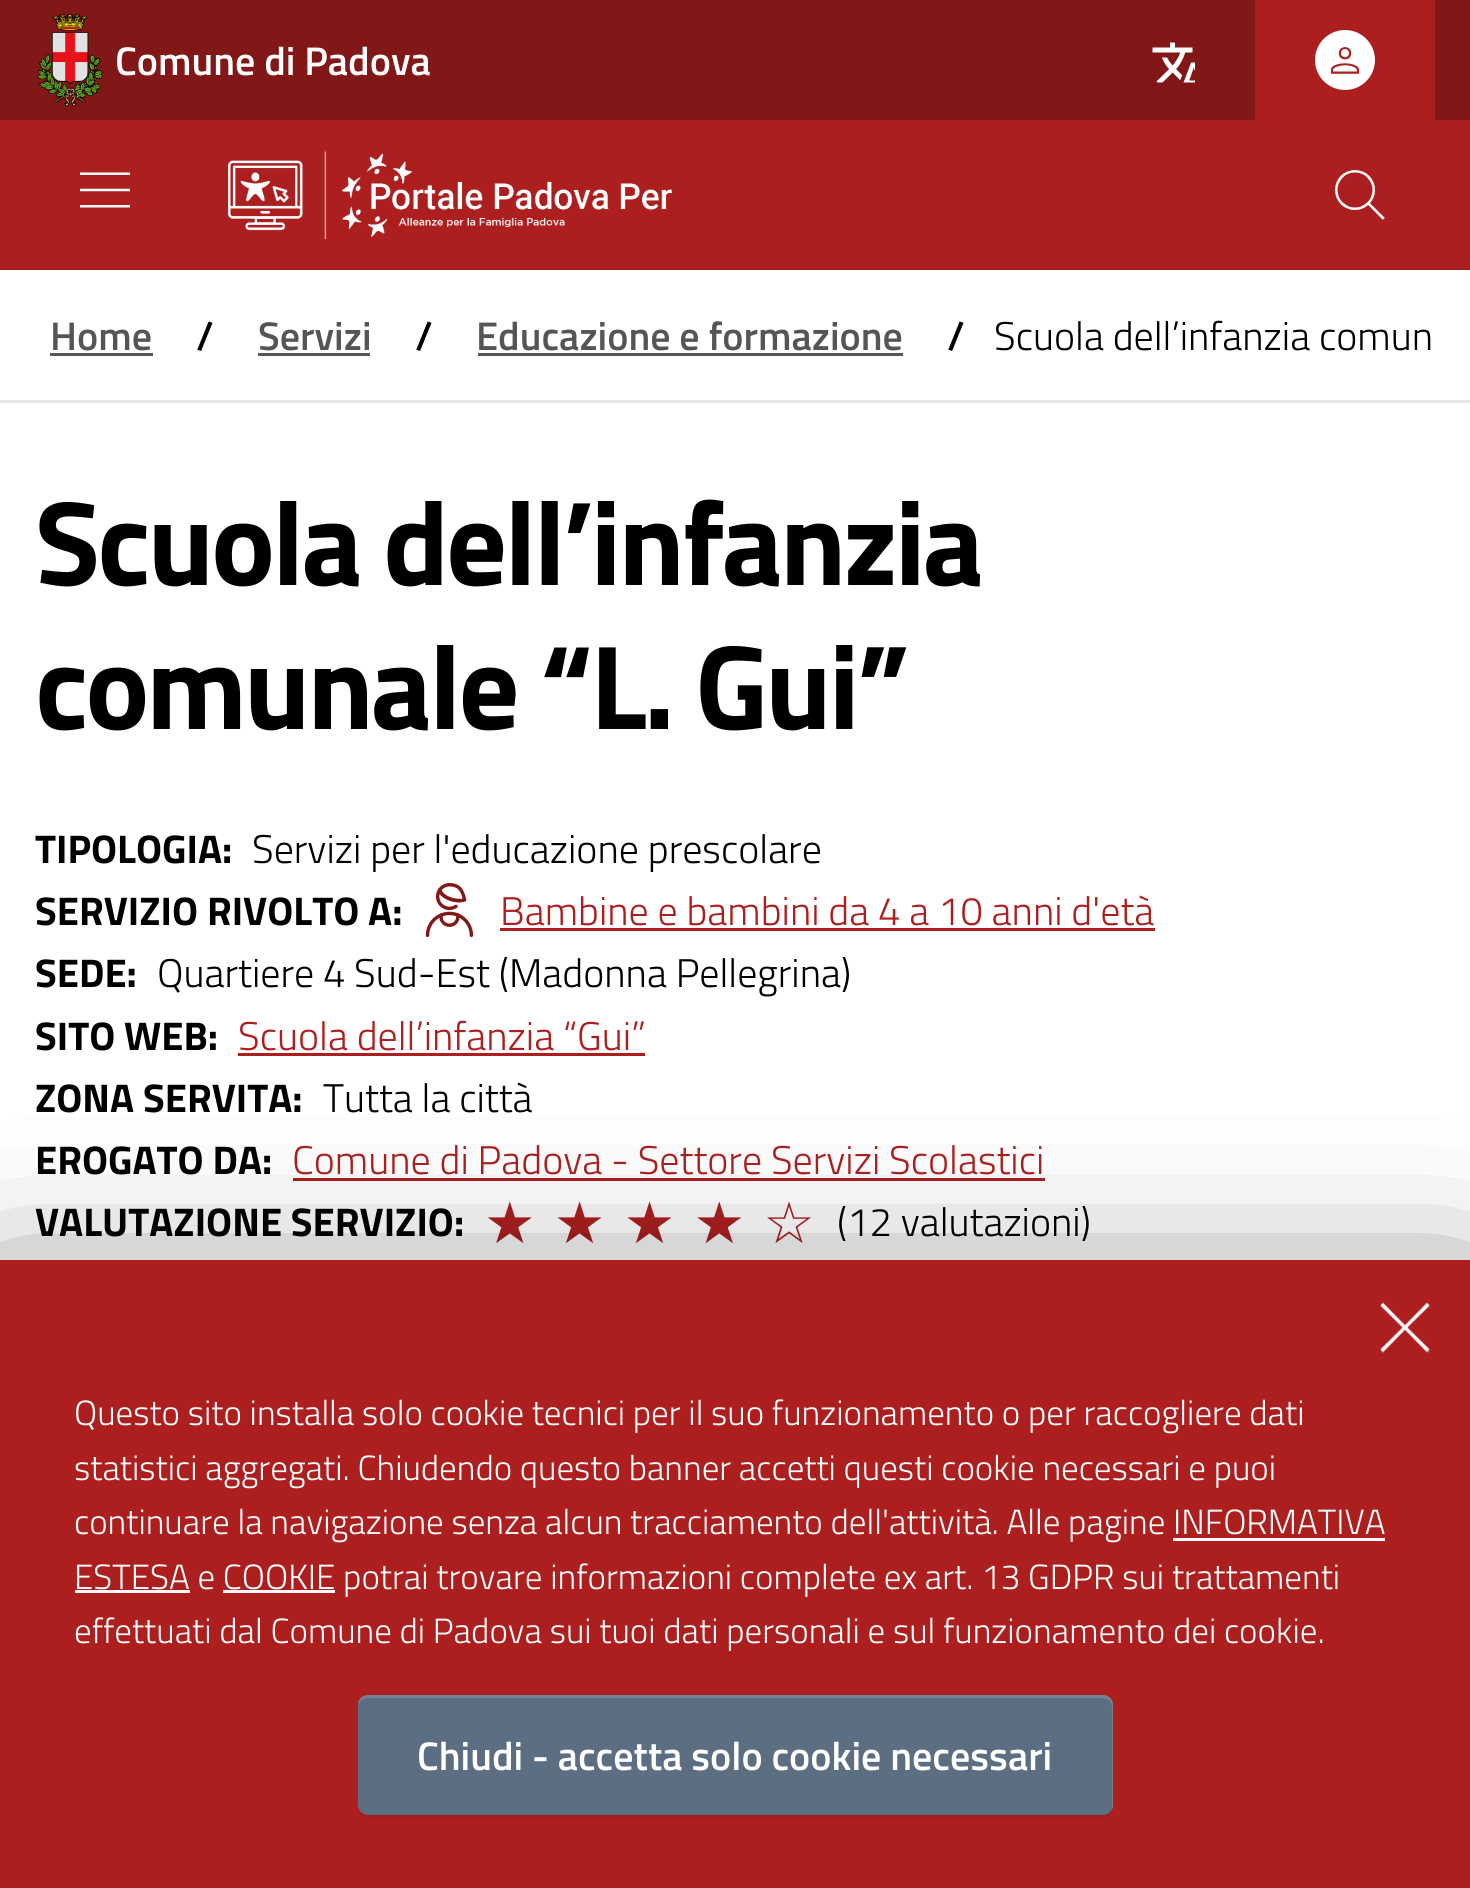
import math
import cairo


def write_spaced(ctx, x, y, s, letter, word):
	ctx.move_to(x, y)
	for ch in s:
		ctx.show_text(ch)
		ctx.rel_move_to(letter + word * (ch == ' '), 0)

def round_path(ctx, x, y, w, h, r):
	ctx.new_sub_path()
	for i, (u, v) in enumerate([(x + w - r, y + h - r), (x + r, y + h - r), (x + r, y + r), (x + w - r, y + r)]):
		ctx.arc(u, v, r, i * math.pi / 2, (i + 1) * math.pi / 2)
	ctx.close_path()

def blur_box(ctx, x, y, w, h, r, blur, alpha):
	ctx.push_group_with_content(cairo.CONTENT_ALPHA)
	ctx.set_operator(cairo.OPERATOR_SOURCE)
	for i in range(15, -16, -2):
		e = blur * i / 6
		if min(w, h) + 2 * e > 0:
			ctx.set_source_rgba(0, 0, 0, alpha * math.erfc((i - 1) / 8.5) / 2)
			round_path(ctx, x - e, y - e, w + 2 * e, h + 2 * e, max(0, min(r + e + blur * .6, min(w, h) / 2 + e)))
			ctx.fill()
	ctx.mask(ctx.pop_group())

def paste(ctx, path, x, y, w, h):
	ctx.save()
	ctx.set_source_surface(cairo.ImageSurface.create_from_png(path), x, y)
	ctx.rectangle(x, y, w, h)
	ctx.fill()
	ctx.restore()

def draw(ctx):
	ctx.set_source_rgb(1, 1, 1)
	ctx.paint()
	ctx.set_source_rgb(0.51, 0.09, 0.09)
	ctx.rectangle(0, 0, 1470, 120)
	ctx.fill()
	paste(ctx, 'media/1.png', 37, 13, 66, 94)
	ctx.select_font_face('Titillium Web SemiBold')
	ctx.set_font_size(40)
	ctx.set_source_rgb(1, 1, 1)
	ctx.move_to(115, 75)
	ctx.show_text('Comune di Padova')
	paste(ctx, 'media/2.png', 1152, 42, 43, 41)
	ctx.set_source_rgb(0.678, 0.122, 0.122)
	ctx.rectangle(1255, 0, 180, 120)
	ctx.fill()
	ctx.set_source_rgb(1, 1, 1)
	ctx.arc(1345, 60, 30, 0, 2 * math.pi)
	ctx.fill()
	paste(ctx, 'media/3.png', 1330, 47, 30, 27)
	ctx.set_source_rgb(0.678, 0.122, 0.122)
	ctx.rectangle(0, 120, 1470, 150)
	ctx.fill()
	paste(ctx, 'media/4.png', 228, 151, 444, 89)
	paste(ctx, 'media/5.png', 1335, 170, 50, 50)
	paste(ctx, 'media/6.png', 80, 172, 50, 36)
	ctx.set_source_rgb(0.898, 0.898, 0.898)
	ctx.rectangle(0, 400, 1470, 3)
	ctx.fill()
	ctx.set_source_rgb(0.333, 0.333, 0.333)
	ctx.move_to(50, 350)
	ctx.show_text('Home')
	ctx.rectangle(50, 353, 103, 3)
	ctx.fill()
	ctx.set_source_rgb(0, 0, 0)
	ctx.move_to(196, 350)
	ctx.show_text('/')
	ctx.set_source_rgb(0.333, 0.333, 0.333)
	ctx.move_to(258, 350)
	ctx.show_text('Servizi')
	ctx.rectangle(258, 353, 112, 3)
	ctx.fill()
	ctx.set_source_rgb(0, 0, 0)
	ctx.move_to(415, 350)
	ctx.show_text('/')
	ctx.set_source_rgb(0.333, 0.333, 0.333)
	ctx.move_to(476, 350)
	ctx.show_text('Educazione e formazione')
	ctx.rectangle(478, 353, 425, 3)
	ctx.fill()
	ctx.set_source_rgb(0, 0, 0)
	ctx.move_to(947, 350)
	ctx.show_text('/')
	ctx.select_font_face('Titillium Web Light')
	ctx.move_to(994, 350)
	ctx.show_text('Scuola dell’infanzia comun')
	ctx.select_font_face('Titillium Web', cairo.FONT_SLANT_NORMAL, cairo.FONT_WEIGHT_BOLD)
	ctx.set_font_size(120)
	write_spaced(ctx, 35, 585, 'Scuola dell’infanzia', -3, 0)
	write_spaced(ctx, 35, 729, 'comunale “L. Gui”', -3, 0)
	ctx.set_font_size(40)
	ctx.move_to(35, 863)
	ctx.show_text('TIPOLOGIA:')
	ctx.select_font_face('Titillium Web Light')
	ctx.move_to(252, 863)
	ctx.show_text('Servizi per l\'educazione prescolare')
	ctx.select_font_face('Titillium Web', cairo.FONT_SLANT_NORMAL, cairo.FONT_WEIGHT_BOLD)
	ctx.move_to(35, 925)
	ctx.show_text('SERVIZIO RIVOLTO A:')
	paste(ctx, 'media/7.png', 425, 883, 49, 55)
	ctx.select_font_face('Titillium Web Light')
	ctx.set_source_rgb(0.678, 0.122, 0.122)
	ctx.move_to(500, 925)
	ctx.show_text('Bambine e bambini da 4 a 10 anni d\'età')
	ctx.rectangle(500, 928, 655, 3)
	ctx.fill()
	ctx.select_font_face('Titillium Web', cairo.FONT_SLANT_NORMAL, cairo.FONT_WEIGHT_BOLD)
	ctx.set_source_rgb(0, 0, 0)
	ctx.move_to(35, 987)
	ctx.show_text('SEDE:')
	ctx.select_font_face('Titillium Web Light')
	ctx.move_to(157, 987)
	ctx.show_text('Quartiere 4 Sud-Est (Madonna Pellegrina)')
	ctx.select_font_face('Titillium Web', cairo.FONT_SLANT_NORMAL, cairo.FONT_WEIGHT_BOLD)
	ctx.move_to(35, 1050)
	ctx.show_text('SITO WEB:')
	ctx.select_font_face('Titillium Web Light')
	ctx.set_source_rgb(0.678, 0.122, 0.122)
	ctx.move_to(238, 1050)
	ctx.show_text('Scuola dell’infanzia “Gui”')
	ctx.rectangle(238, 1053, 407, 3)
	ctx.fill()
	ctx.select_font_face('Titillium Web', cairo.FONT_SLANT_NORMAL, cairo.FONT_WEIGHT_BOLD)
	ctx.set_source_rgb(0, 0, 0)
	ctx.move_to(35, 1112)
	ctx.show_text('ZONA SERVITA:')
	ctx.select_font_face('Titillium Web Light')
	ctx.move_to(323, 1112)
	ctx.show_text('Tutta la città')
	ctx.select_font_face('Titillium Web', cairo.FONT_SLANT_NORMAL, cairo.FONT_WEIGHT_BOLD)
	ctx.move_to(35, 1174)
	ctx.show_text('EROGATO DA:')
	ctx.select_font_face('Titillium Web Light')
	ctx.set_source_rgb(0.678, 0.122, 0.122)
	ctx.move_to(292, 1174)
	ctx.show_text('Comune di Padova - Settore Servizi Scolastici')
	ctx.rectangle(293, 1178, 752, 3)
	ctx.fill()
	ctx.select_font_face('Titillium Web', cairo.FONT_SLANT_NORMAL, cairo.FONT_WEIGHT_BOLD)
	ctx.set_source_rgb(0, 0, 0)
	ctx.move_to(35, 1236)
	ctx.show_text('VALUTAZIONE SERVIZIO:')
	ctx.select_font_face('DejaVu Sans')
	ctx.set_font_size(57.5)
	ctx.set_source_rgb(0.678, 0.122, 0.122)
	ctx.move_to(484, 1243)
	ctx.show_text('★ ★ ★ ★ ☆')
	ctx.select_font_face('Titillium Web Light')
	ctx.set_font_size(40)
	ctx.set_source_rgb(0, 0, 0)
	ctx.move_to(837, 1236)
	ctx.show_text('(12 valutazioni)')
	ctx.set_source_rgb(0, 0, 0)
	blur_box(ctx, 0, 1335, 1470, 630, 0, 87.5, 1)
	ctx.set_source_rgb(0.678, 0.122, 0.122)
	ctx.rectangle(0, 1260, 1470, 628)
	ctx.fill()
	ctx.set_font_size(35)
	ctx.set_source_rgb(1, 1, 1)
	for x, y, s in [
		(74, 1425, 'Questo sito installa solo cookie tecnici per il suo funzionamento o per raccogliere dati'),
		(74, 1480, 'statistici aggregati. Chiudendo questo banner accetti questi cookie necessari e puoi'),
		(74, 1534, 'continuare la navigazione senza alcun tracciamento dell\'attività. Alle pagine INFORMATIVA'),
	]:
		ctx.move_to(x, y)
		ctx.show_text(s)
	ctx.rectangle(75, 1590, 115, 3)
	ctx.fill()
	ctx.move_to(74, 1589)
	ctx.show_text('ESTESA e COOKIE potrai trovare informazioni complete ex art. 13 GDPR sui trattamenti')
	ctx.rectangle(1173, 1538, 212, 3)
	ctx.fill()
	ctx.rectangle(223, 1590, 112, 3)
	ctx.fill()
	ctx.move_to(74, 1643)
	ctx.show_text('effettuati dal Comune di Padova sui tuoi dati personali e sul funzionamento dei cookie.')
	paste(ctx, 'media/8.png', 1380, 1302, 50, 51)
	ctx.set_source_rgb(0, 0, 0)
	blur_box(ctx, 358, 1698, 755, 120, 10, 1, 0.07)
	ctx.set_source_rgb(0.361, 0.435, 0.51)
	round_path(ctx, 358, 1695, 755, 120, 10)
	ctx.fill()
	ctx.set_source_rgba(1, 1, 1, 0.15)
	ctx.new_path()
	ctx.move_to(368, 1698)
	ctx.line_to(1102, 1698)
	ctx.curve_to(1108, 1698, 1112, 1702, 1112, 1708)
	ctx.line_to(1112, 1810)
	ctx.curve_to(1113, 1808, 1113, 1807, 1113, 1805)
	ctx.line_to(1113, 1705)
	ctx.curve_to(1113, 1699, 1109, 1695, 1103, 1695)
	ctx.line_to(368, 1695)
	ctx.curve_to(362, 1695, 358, 1699, 358, 1705)
	ctx.line_to(358, 1708)
	ctx.curve_to(358, 1702, 362, 1698, 368, 1698)
	ctx.close_path()
	ctx.fill()
	ctx.select_font_face('Titillium Web SemiBold')
	ctx.set_font_size(40)
	ctx.set_source_rgb(1, 1, 1)
	ctx.move_to(417, 1770)
	ctx.show_text('Chiudi - accetta solo cookie necessari')


surface = cairo.ImageSurface(cairo.FORMAT_RGB24, 1470, 1888)
ctx = cairo.Context(surface)
options = cairo.FontOptions()
options.set_hint_metrics(cairo.HINT_METRICS_OFF)
options.set_hint_style(cairo.HINT_STYLE_NONE)
ctx.set_font_options(options)
ctx.set_miter_limit(4)
draw(ctx)
surface.write_to_png('image.png')
